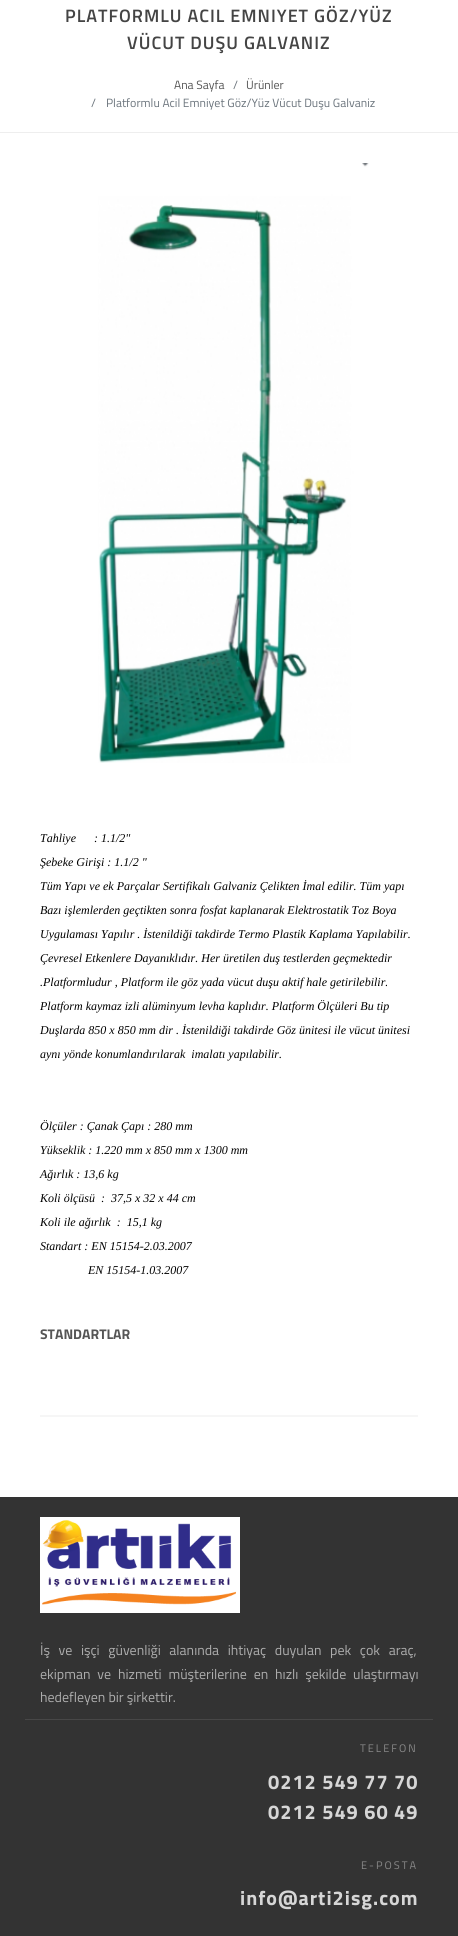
import math
import cairo


def write_spaced(ctx, x, y, s, letter, word):
	ctx.move_to(x, y)
	for ch in s:
		ctx.show_text(ch)
		ctx.rel_move_to(letter + word * (ch == ' '), 0)

def paste(ctx, path, x, y, w, h):
	ctx.save()
	ctx.set_source_surface(cairo.ImageSurface.create_from_png(path), x, y)
	ctx.rectangle(x, y, w, h)
	ctx.fill()
	ctx.restore()

def draw(ctx):
	ctx.set_source_rgb(1, 1, 1)
	ctx.paint()
	ctx.set_source_rgb(0.933, 0.933, 0.933)
	ctx.rectangle(0, 132, 458, 1)
	ctx.fill()
	ctx.select_font_face('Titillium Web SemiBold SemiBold')
	ctx.set_font_size(18)
	ctx.set_source_rgb(0.267, 0.267, 0.267)
	write_spaced(ctx, 65, 22, 'PLATFORMLU ACIL EMNIYET GÖZ/YÜZ', 1, 0)
	write_spaced(ctx, 127, 49, 'VÜCUT DUŞU GALVANIZ', 1, 0)
	ctx.select_font_face('Titillium Web')
	ctx.set_font_size(12)
	ctx.set_source_rgb(0.333, 0.333, 0.333)
	ctx.move_to(174, 89)
	ctx.show_text('Ana Sayfa')
	ctx.set_source_rgb(0.424, 0.459, 0.49)
	ctx.move_to(233, 89)
	ctx.show_text('/')
	ctx.set_source_rgb(0.333, 0.333, 0.333)
	ctx.move_to(246, 89)
	ctx.show_text('Ürünler')
	ctx.set_source_rgb(0.424, 0.459, 0.49)
	ctx.move_to(91, 107)
	ctx.show_text('/')
	ctx.move_to(106, 107)
	ctx.show_text('Platformlu Acil Emniyet Göz/Yüz Vücut Duşu Galvaniz')
	paste(ctx, 'media/1.png', 98, 163, 271, 600)
	ctx.select_font_face('Liberation Serif', cairo.FONT_SLANT_ITALIC)
	ctx.set_source_rgb(0, 0, 0)
	for x, y, s in [
		(40, 842, 'Tahliye      : 1.1/2"'),
		(40, 866, 'Şebeke Girişi : 1.1/2 "'),
		(40, 890, 'Tüm Yapı ve ek Parçalar Sertifikalı Galvaniz Çelikten İmal edilir. Tüm yapı'),
		(40, 914, 'Bazı işlemlerden geçtikten sonra fosfat kaplanarak Elektrostatik Toz Boya'),
		(40, 938, 'Uygulaması Yapılır . İstenildiği takdirde Termo Plastik Kaplama Yapılabilir.'),
		(40, 962, 'Çevresel Etkenlere Dayanıklıdır. Her üretilen duş testlerden geçmektedir'),
		(40, 986, '.Platformludur , Platform ile göz yada vücut duşu aktif hale getirilebilir.'),
		(40, 1010, 'Platform kaymaz izli alüminyum levha kaplıdır. Platform Ölçüleri Bu tip'),
		(40, 1034, 'Duşlarda 850 x 850 mm dir . İstenildiği takdirde Göz ünitesi ile vücut ünitesi'),
		(40, 1058, 'aynı yönde konumlandırılarak  imalatı yapılabilir.'),
		(40, 1130, 'Ölçüler : Çanak Çapı : 280 mm'),
		(40, 1154, 'Yükseklik : 1.220 mm x 850 mm x 1300 mm'),
		(40, 1178, 'Ağırlık : 13,6 kg'),
		(40, 1202, 'Koli ölçüsü  :  37,5 x 32 x 44 cm'),
		(40, 1226, 'Koli ile ağırlık  :  15,1 kg'),
		(40, 1250, 'Standart : EN 15154-2.03.2007'),
		(88, 1274, 'EN 15154-1.03.2007'),
	]:
		ctx.move_to(x, y)
		ctx.show_text(s)
	ctx.select_font_face('Titillium Web', cairo.FONT_SLANT_NORMAL, cairo.FONT_WEIGHT_BOLD)
	ctx.set_font_size(14)
	ctx.set_source_rgb(0.333, 0.333, 0.333)
	ctx.move_to(40, 1339)
	ctx.show_text('STANDARTLAR')
	ctx.set_source_rgb(0.961, 0.961, 0.961)
	ctx.rectangle(40, 1415, 378, 2)
	ctx.fill()
	ctx.set_source_rgb(0.2, 0.2, 0.2)
	ctx.rectangle(0, 1497, 458, 439)
	ctx.fill()
	paste(ctx, 'media/2.png', 40, 1517, 200, 96)
	ctx.select_font_face('Titillium Web')
	ctx.set_source_rgb(0.678, 0.678, 0.678)
	write_spaced(ctx, 40, 1655, 'İş ve işçi güvenliği alanında ihtiyaç duyulan pek çok araç,', 0, 5.5)
	write_spaced(ctx, 40, 1679, 'ekipman ve hizmeti müşterilerine en hızlı şekilde ulaştırmayı', 0, 3.75)
	ctx.move_to(40, 1702)
	ctx.show_text('hedefleyen bir şirkettir.')
	ctx.set_source_rgb(0.278, 0.278, 0.278)
	ctx.rectangle(25, 1719, 408, 1)
	ctx.fill()
	ctx.set_font_size(11)
	ctx.set_source_rgb(0.533, 0.533, 0.533)
	write_spaced(ctx, 360, 1752, 'TELEFON', 2, 0)
	ctx.select_font_face('Titillium Web', cairo.FONT_SLANT_NORMAL, cairo.FONT_WEIGHT_BOLD)
	ctx.set_font_size(20)
	ctx.set_source_rgb(0.839, 0.839, 0.839)
	write_spaced(ctx, 268, 1789, '0212 549 77 70', 1, 0)
	write_spaced(ctx, 268, 1819, '0212 549 60 49', 1, 0)
	ctx.select_font_face('Titillium Web')
	ctx.set_font_size(11)
	ctx.set_source_rgb(0.533, 0.533, 0.533)
	write_spaced(ctx, 361, 1869, 'E-POSTA', 2, 0)
	ctx.select_font_face('Titillium Web', cairo.FONT_SLANT_NORMAL, cairo.FONT_WEIGHT_BOLD)
	ctx.set_font_size(20)
	ctx.set_source_rgb(0.839, 0.839, 0.839)
	write_spaced(ctx, 240, 1905, 'info@arti2isg.com', 1, 0)


surface = cairo.ImageSurface(cairo.FORMAT_RGB24, 458, 1936)
ctx = cairo.Context(surface)
options = cairo.FontOptions()
options.set_hint_metrics(cairo.HINT_METRICS_OFF)
options.set_hint_style(cairo.HINT_STYLE_NONE)
ctx.set_font_options(options)
ctx.set_miter_limit(4)
draw(ctx)
surface.write_to_png('image.png')
